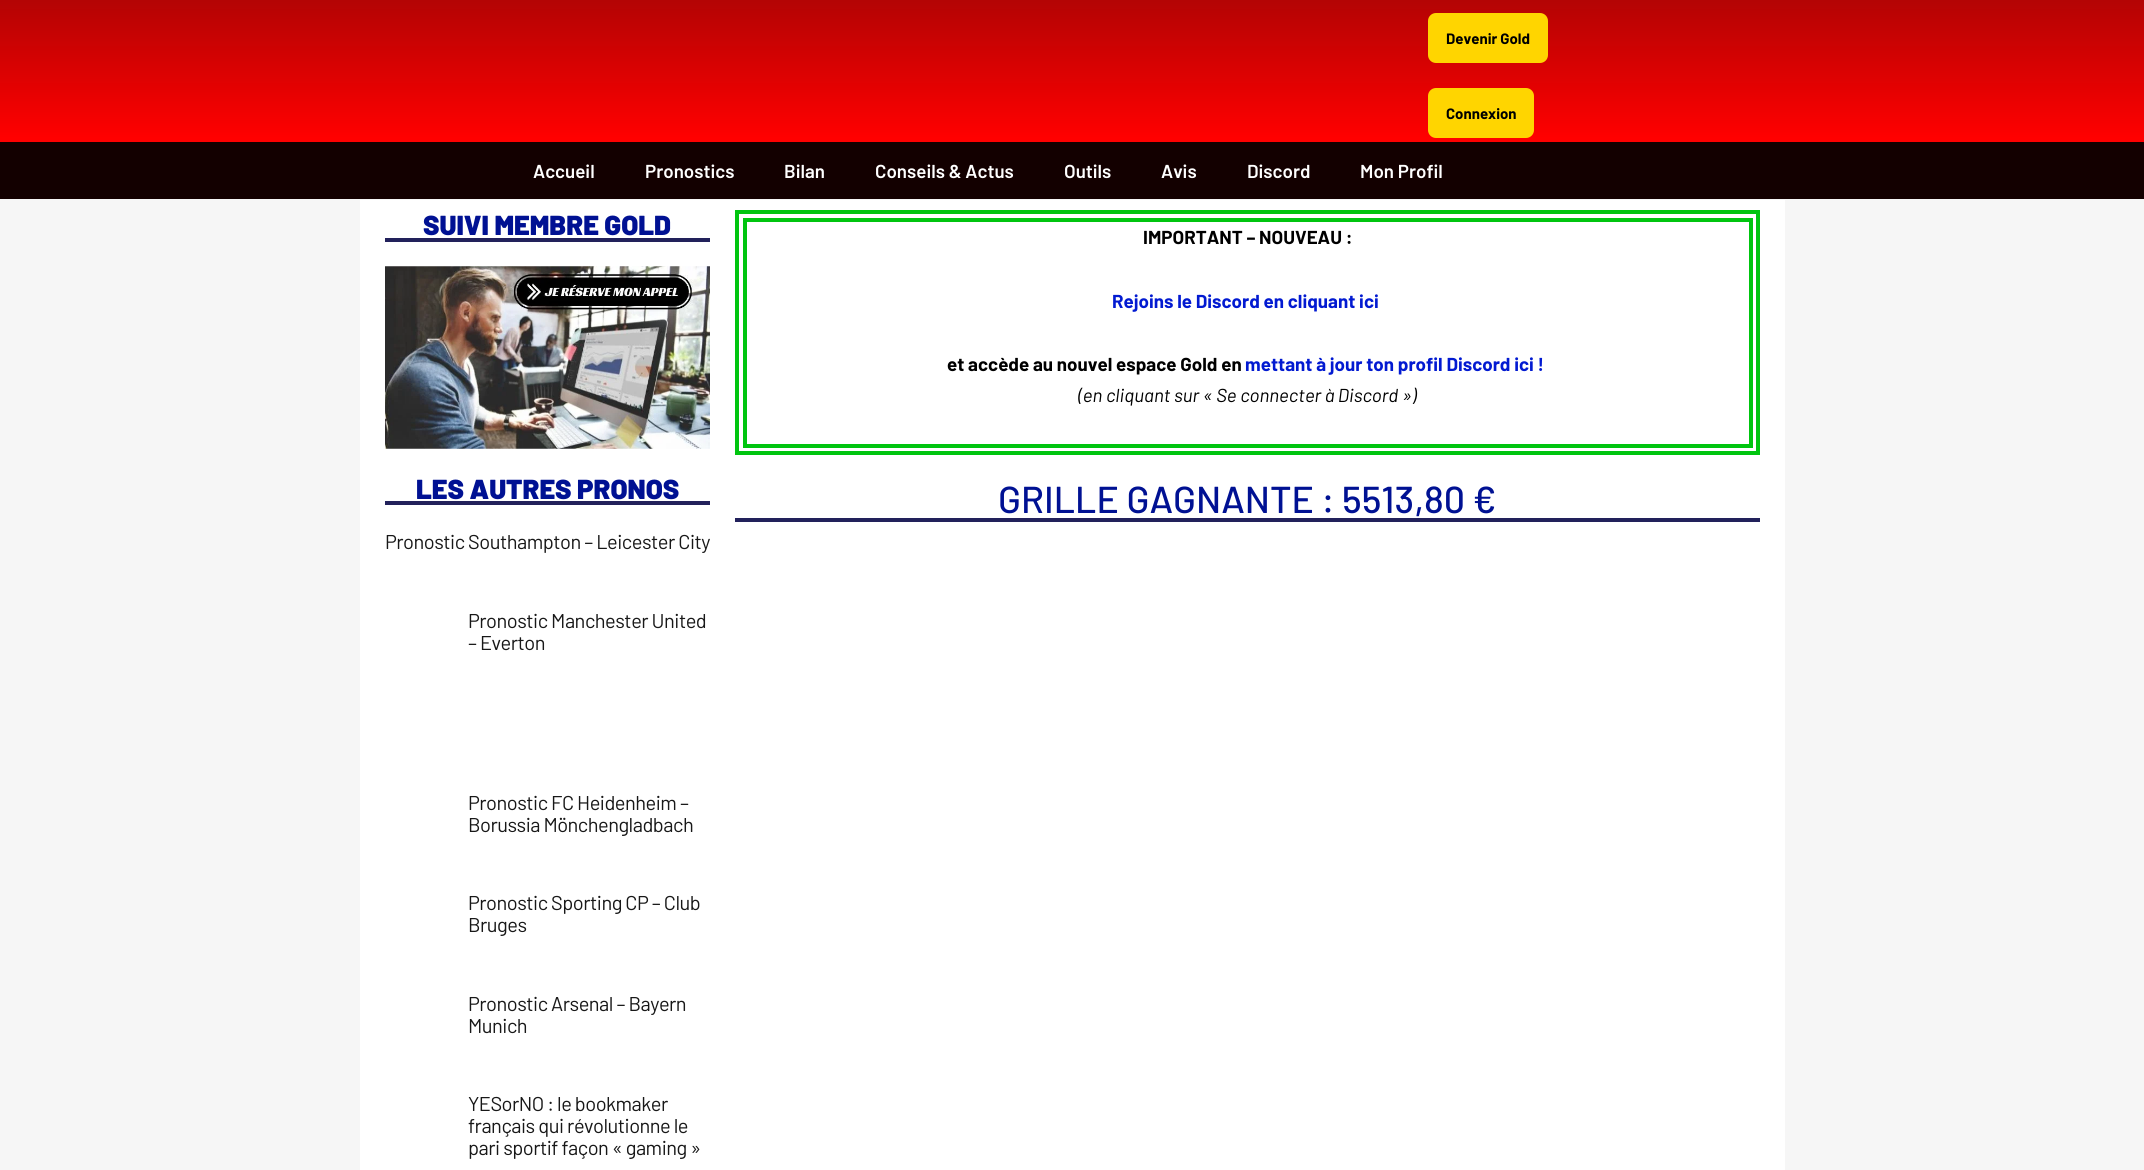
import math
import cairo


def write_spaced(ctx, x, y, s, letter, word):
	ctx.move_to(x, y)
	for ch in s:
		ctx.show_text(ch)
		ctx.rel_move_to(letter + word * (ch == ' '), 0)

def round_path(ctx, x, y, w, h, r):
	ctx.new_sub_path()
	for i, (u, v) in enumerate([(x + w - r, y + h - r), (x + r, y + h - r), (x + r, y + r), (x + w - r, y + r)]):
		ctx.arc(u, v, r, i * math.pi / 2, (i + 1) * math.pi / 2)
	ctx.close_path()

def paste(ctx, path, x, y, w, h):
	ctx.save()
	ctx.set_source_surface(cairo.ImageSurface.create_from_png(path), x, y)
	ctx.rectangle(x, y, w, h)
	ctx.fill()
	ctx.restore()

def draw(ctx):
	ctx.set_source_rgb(0.961, 0.961, 0.961)
	ctx.paint()
	gradient = cairo.LinearGradient(1073, -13, 1073, 138)
	gradient.add_color_stop_rgba(0, 0.675, 0.016, 0.016, 1)
	gradient.add_color_stop_rgba(1, 1, 0, 0, 1)
	ctx.set_source(gradient)
	ctx.rectangle(0, 0, 2144, 138)
	ctx.fill()
	ctx.set_source_rgb(1, 0.835, 0)
	round_path(ctx, 1428, 13, 120, 50, 8)
	ctx.fill()
	ctx.select_font_face('Barlow', cairo.FONT_SLANT_NORMAL, cairo.FONT_WEIGHT_BOLD)
	ctx.set_font_size(15)
	ctx.set_source_rgb(0, 0, 0)
	ctx.move_to(1446, 44)
	ctx.show_text('Devenir Gold')
	ctx.set_source_rgb(1, 0.835, 0)
	round_path(ctx, 1428, 88, 106, 50, 8)
	ctx.fill()
	ctx.set_source_rgb(0, 0, 0)
	ctx.move_to(1446, 119)
	ctx.show_text('Connexion')
	ctx.set_source_rgb(0.078, 0, 0)
	ctx.rectangle(0, 142, 2144, 57)
	ctx.fill()
	ctx.set_source_rgb(1, 0, 0)
	ctx.rectangle(0, 138, 2144, 4)
	ctx.fill()
	ctx.select_font_face('Barlow SemiBold')
	ctx.set_font_size(18.75)
	ctx.set_source_rgb(1, 1, 1)
	for x, y, s in [
		(533, 178, 'Accueil'),
		(645, 178, 'Pronostics'),
		(784, 178, 'Bilan'),
		(875, 178, 'Conseils & Actus'),
		(1064, 178, 'Outils'),
		(1161, 178, 'Avis'),
		(1247, 178, 'Discord'),
		(1360, 178, 'Mon Profil'),
	]:
		ctx.move_to(x, y)
		ctx.show_text(s)
	ctx.rectangle(360, 200, 1425, 970)
	ctx.fill()
	ctx.set_source_rgb(0.133, 0.129, 0.357)
	ctx.rectangle(385, 238, 325, 4)
	ctx.fill()
	ctx.select_font_face('Barlow Black')
	ctx.set_font_size(27.5)
	ctx.set_source_rgb(0, 0.067, 0.576)
	ctx.move_to(423, 235)
	ctx.show_text('SUIVI MEMBRE GOLD')
	paste(ctx, 'media/1.png', 385, 266, 325, 183)
	ctx.set_source_rgb(0.133, 0.129, 0.357)
	ctx.rectangle(385, 501, 325, 4)
	ctx.fill()
	ctx.set_source_rgb(0, 0.067, 0.576)
	ctx.move_to(416, 499)
	ctx.show_text('LES AUTRES PRONOS')
	ctx.select_font_face('Barlow')
	ctx.set_font_size(20)
	ctx.set_source_rgb(0.094, 0.094, 0.094)
	for x, y, s in [
		(385, 549, 'Pronostic Southampton – Leicester City'),
		(468, 628, 'Pronostic Manchester United'),
		(468, 650, '– Everton'),
		(468, 810, 'Pronostic FC Heidenheim –'),
		(468, 832, 'Borussia Mönchengladbach'),
		(468, 910, 'Pronostic Sporting CP – Club'),
		(468, 932, 'Bruges'),
		(468, 1011, 'Pronostic Arsenal – Bayern'),
		(468, 1033, 'Munich'),
		(468, 1111, 'YESorNO : le bookmaker'),
		(468, 1133, 'français qui révolutionne le'),
		(468, 1155, 'pari sportif façon « gaming »'),
	]:
		write_spaced(ctx, x, y, s, -0.5, 0)
	ctx.rectangle(737, 212, 1021, 241)
	ctx.set_source_rgb(0, 0.773, 0.059)
	ctx.set_line_width(4)
	ctx.stroke()
	ctx.rectangle(745, 220, 1006, 226)
	ctx.stroke()
	ctx.select_font_face('Barlow', cairo.FONT_SLANT_NORMAL, cairo.FONT_WEIGHT_BOLD)
	ctx.set_font_size(18.75)
	ctx.set_source_rgb(0, 0, 0)
	ctx.move_to(1143, 244)
	ctx.show_text('IMPORTANT – NOUVEAU :')
	ctx.set_source_rgb(0.008, 0.102, 0.82)
	ctx.move_to(1112, 308)
	ctx.show_text('Rejoins le Discord en cliquant ici')
	ctx.set_source_rgb(0, 0, 0)
	ctx.move_to(947, 371)
	ctx.show_text('et accède au nouvel espace Gold en')
	ctx.set_source_rgb(0.008, 0.102, 0.82)
	ctx.move_to(1245, 371)
	ctx.show_text('mettant à jour ton profil Discord ici !')
	ctx.select_font_face('Barlow', cairo.FONT_SLANT_ITALIC)
	ctx.set_source_rgb(0, 0, 0)
	ctx.move_to(1078, 402)
	ctx.show_text('(en cliquant sur « Se connecter à Discord »)')
	ctx.set_source_rgb(0.133, 0.129, 0.357)
	ctx.rectangle(735, 518, 1025, 4)
	ctx.fill()
	ctx.select_font_face('Barlow Medium')
	ctx.set_font_size(37.5)
	ctx.set_source_rgb(0, 0.067, 0.576)
	ctx.move_to(998, 513)
	ctx.show_text('GRILLE GAGNANTE : 5513,80 €')


surface = cairo.ImageSurface(cairo.FORMAT_RGB24, 2144, 1170)
ctx = cairo.Context(surface)
options = cairo.FontOptions()
options.set_hint_metrics(cairo.HINT_METRICS_OFF)
options.set_hint_style(cairo.HINT_STYLE_NONE)
ctx.set_font_options(options)
ctx.set_miter_limit(4)
draw(ctx)
surface.write_to_png('image.png')
